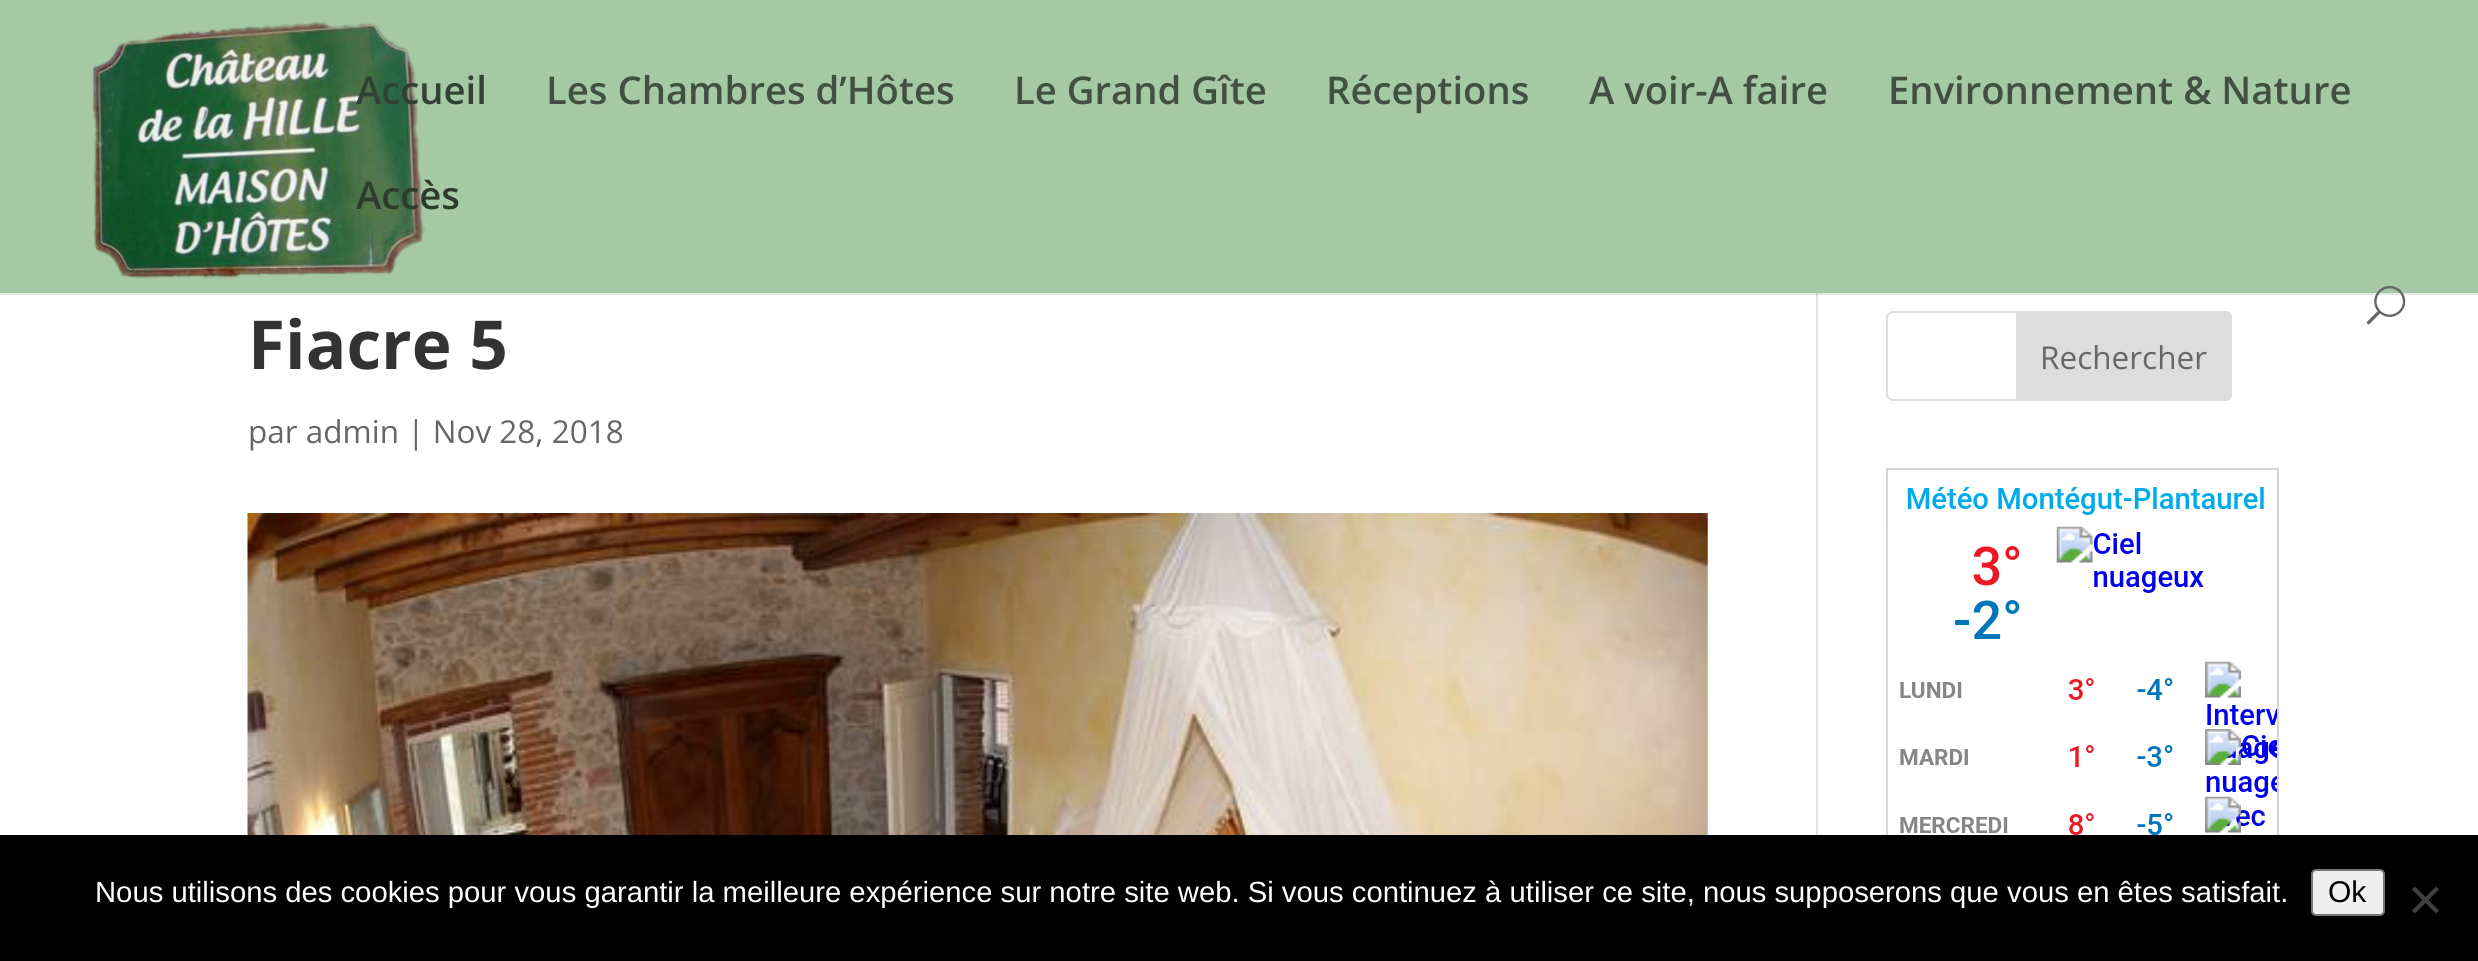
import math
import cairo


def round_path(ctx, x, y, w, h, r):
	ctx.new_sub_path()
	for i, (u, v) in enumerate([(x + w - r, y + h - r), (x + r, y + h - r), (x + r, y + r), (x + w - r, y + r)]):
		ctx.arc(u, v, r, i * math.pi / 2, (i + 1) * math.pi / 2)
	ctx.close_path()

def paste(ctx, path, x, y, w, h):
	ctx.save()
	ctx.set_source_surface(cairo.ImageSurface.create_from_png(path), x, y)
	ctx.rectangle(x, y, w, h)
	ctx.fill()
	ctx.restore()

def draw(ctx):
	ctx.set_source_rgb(1, 1, 1)
	ctx.paint()
	ctx.set_source_rgb(0.886, 0.886, 0.886)
	ctx.rectangle(1816, 293, 2, 542)
	ctx.fill()
	ctx.set_source_rgba(0, 0, 0, 0.1)
	ctx.new_path()
	ctx.move_to(0, 292)
	ctx.line_to(0, 295)
	ctx.line_to(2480, 295)
	ctx.line_to(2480, 2)
	ctx.line_to(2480, 292)
	ctx.close_path()
	ctx.fill()
	ctx.set_source_rgb(0.647, 0.788, 0.647)
	ctx.rectangle(0, 0, 2478, 293)
	ctx.fill()
	paste(ctx, 'media/1.png', 92, 21, 335, 258)
	ctx.select_font_face('Open Sans SemiBold')
	ctx.set_font_size(38.25)
	ctx.set_source_rgb(0.192, 0.255, 0.2)
	ctx.move_to(356, 104)
	ctx.show_text('Accueil')
	ctx.set_source_rgb(0.259, 0.314, 0.259)
	for x, y, s in [
		(546, 104, 'Les Chambres d’Hôtes'),
		(1014, 104, 'Le Grand Gîte'),
		(1326, 104, 'Réceptions'),
		(1589, 104, 'A voir-A faire'),
		(1888, 104, 'Environnement & Nature'),
	]:
		ctx.move_to(x, y)
		ctx.show_text(s)
	ctx.set_source_rgb(0.18, 0.235, 0.176)
	ctx.move_to(356, 209)
	ctx.show_text('Accès')
	paste(ctx, 'media/2.png', 2366, 285, 40, 40)
	ctx.select_font_face('Open Sans', cairo.FONT_SLANT_NORMAL, cairo.FONT_WEIGHT_BOLD)
	ctx.set_font_size(67.5)
	ctx.set_source_rgb(0.2, 0.2, 0.2)
	ctx.move_to(248, 369)
	ctx.show_text('Fiacre 5')
	ctx.select_font_face('Open Sans')
	ctx.set_font_size(31.5)
	ctx.set_source_rgb(0.4, 0.4, 0.4)
	ctx.move_to(248, 443)
	ctx.show_text('par admin | Nov 28, 2018')
	paste(ctx, 'media/3.png', 247, 513, 1461, 322)
	round_path(ctx, 1887, 312, 344, 88, 6)
	ctx.set_source_rgb(0.867, 0.867, 0.867)
	ctx.stroke()
	ctx.new_path()
	ctx.move_to(2017, 312)
	ctx.line_to(2225, 312)
	ctx.curve_to(2228.5, 312, 2231, 314.5, 2231, 318)
	ctx.line_to(2231, 394)
	ctx.curve_to(2231, 397.5, 2228.5, 400, 2225, 400)
	ctx.line_to(2017, 400)
	ctx.close_path()
	ctx.fill_preserve()
	ctx.stroke()
	ctx.set_source_rgb(0.4, 0.4, 0.4)
	ctx.move_to(2040, 369)
	ctx.show_text('Rechercher')
	ctx.rectangle(1887, 469, 391, 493)
	ctx.set_source_rgb(0.839, 0.839, 0.839)
	ctx.stroke()
	paste(ctx, 'media/4.png', 1887, 487, 390, 348)
	ctx.set_source_rgb(0, 0, 0)
	ctx.rectangle(0, 835, 2478, 126)
	ctx.fill()
	ctx.select_font_face('Liberation Sans')
	ctx.set_font_size(29.25)
	ctx.set_source_rgb(1, 1, 1)
	ctx.move_to(95, 902)
	ctx.show_text('Nous utilisons des cookies pour vous garantir la meilleure expérience sur notre site web. Si vous continuez à utiliser ce site, nous supposerons que vous en êtes satisfait.')
	ctx.set_source_rgb(0.937, 0.937, 0.937)
	round_path(ctx, 2312, 870, 72, 45, 4)
	ctx.fill_preserve()
	ctx.set_source_rgb(0.463, 0.463, 0.463)
	ctx.stroke()
	ctx.set_font_size(30)
	ctx.set_source_rgb(0, 0, 0)
	ctx.move_to(2328, 902)
	ctx.show_text('Ok')
	ctx.set_source_rgb(0.251, 0.251, 0.251)
	ctx.new_path()
	ctx.move_to(2436, 886.5)
	ctx.line_to(2439, 889.5)
	ctx.line_to(2415, 913.5)
	ctx.line_to(2412, 910.5)
	ctx.close_path()
	ctx.fill()
	ctx.new_path()
	ctx.move_to(2412, 889.5)
	ctx.line_to(2415, 886.5)
	ctx.line_to(2439, 910.5)
	ctx.line_to(2436, 913.5)
	ctx.close_path()
	ctx.fill()


surface = cairo.ImageSurface(cairo.FORMAT_RGB24, 2478, 961)
ctx = cairo.Context(surface)
options = cairo.FontOptions()
options.set_hint_metrics(cairo.HINT_METRICS_OFF)
options.set_hint_style(cairo.HINT_STYLE_NONE)
ctx.set_font_options(options)
ctx.set_miter_limit(4)
draw(ctx)
surface.write_to_png('image.png')
